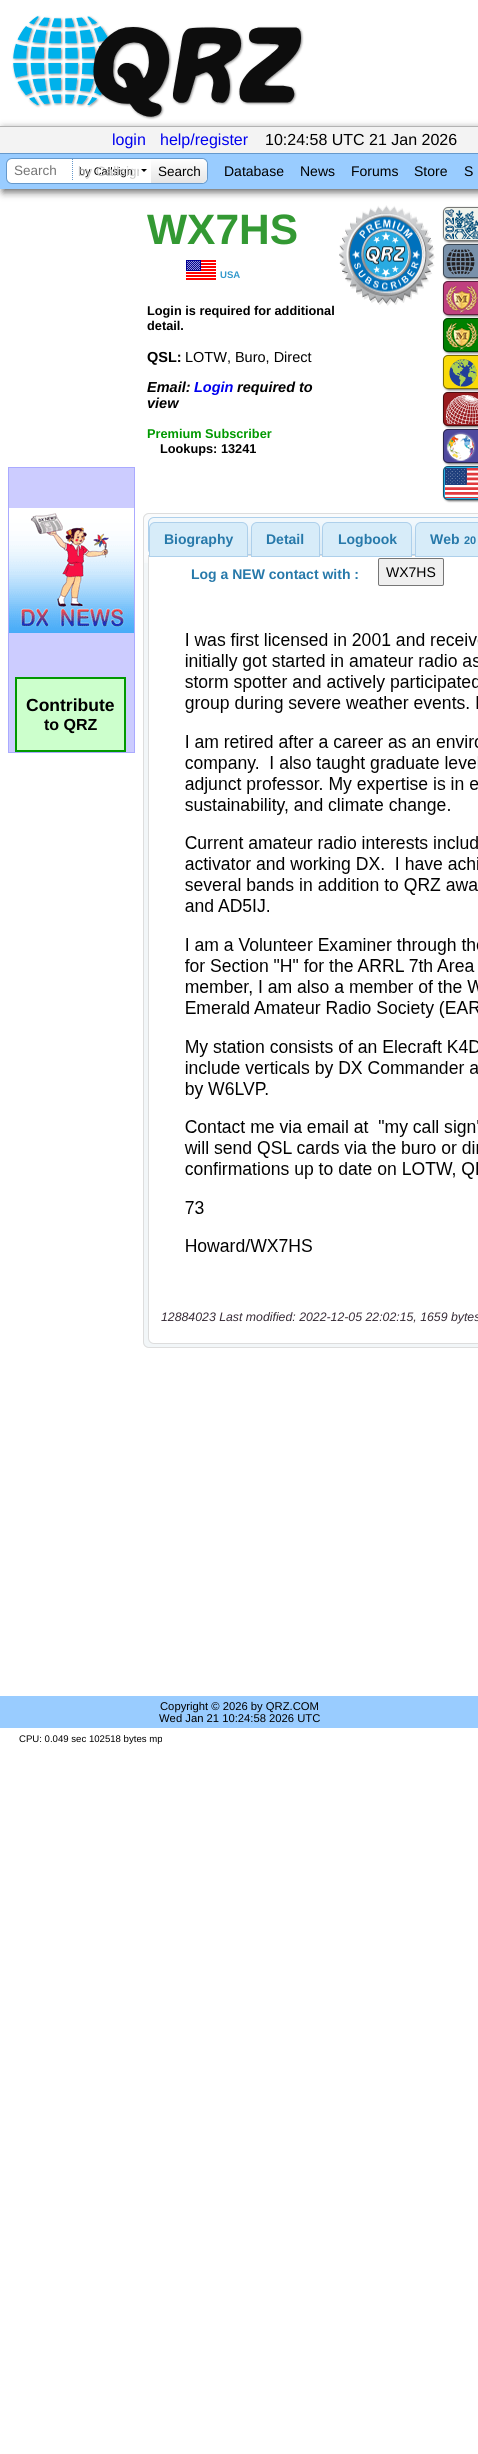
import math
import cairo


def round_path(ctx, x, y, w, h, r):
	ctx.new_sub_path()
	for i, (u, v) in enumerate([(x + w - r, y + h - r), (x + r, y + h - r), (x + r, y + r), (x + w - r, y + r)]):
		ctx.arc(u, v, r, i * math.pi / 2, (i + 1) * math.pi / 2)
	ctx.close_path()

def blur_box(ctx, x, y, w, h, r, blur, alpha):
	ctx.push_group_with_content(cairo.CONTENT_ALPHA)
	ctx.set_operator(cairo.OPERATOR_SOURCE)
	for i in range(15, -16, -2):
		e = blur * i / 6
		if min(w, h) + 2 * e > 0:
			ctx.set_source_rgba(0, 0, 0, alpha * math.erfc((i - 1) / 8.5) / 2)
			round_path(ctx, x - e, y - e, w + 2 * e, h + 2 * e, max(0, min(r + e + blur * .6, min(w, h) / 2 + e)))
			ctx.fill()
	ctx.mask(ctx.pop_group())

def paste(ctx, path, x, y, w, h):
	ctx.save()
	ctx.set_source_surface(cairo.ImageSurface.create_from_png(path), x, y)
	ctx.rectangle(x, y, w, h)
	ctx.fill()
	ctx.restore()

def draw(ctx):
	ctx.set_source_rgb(1, 1, 1)
	ctx.paint()
	ctx.set_source_rgb(0.4, 0.4, 0.4)
	blur_box(ctx, 3, 129, 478, 63, 0, 4, 1)
	paste(ctx, 'media/1.png', 12, 15, 292, 105)
	ctx.set_source_rgb(0.953, 0.953, 0.953)
	ctx.rectangle(0, 127, 478, 26)
	ctx.fill()
	ctx.set_source_rgb(0.702, 0.702, 0.702)
	ctx.rectangle(0, 126, 478, 1)
	ctx.fill()
	ctx.select_font_face('Liberation Sans')
	ctx.set_font_size(16)
	ctx.set_source_rgb(0, 0, 0.933)
	ctx.move_to(112, 145)
	ctx.show_text('login')
	ctx.move_to(160, 145)
	ctx.show_text('help/register')
	ctx.set_source_rgb(0, 0, 0)
	ctx.move_to(265, 145)
	ctx.show_text('10:24:58 UTC 21 Jan 2026')
	ctx.set_source_rgb(0.6, 0.8, 1)
	ctx.rectangle(0, 154, 478, 35)
	ctx.fill()
	ctx.set_source_rgb(0.4, 0.6, 0.8)
	ctx.rectangle(0, 153, 478, 1)
	ctx.fill()
	ctx.set_source_rgb(1, 1, 1)
	round_path(ctx, 6.5, 158.5, 201, 25, 5.5)
	ctx.fill_preserve()
	ctx.set_source_rgb(0.4, 0.6, 0.8)
	ctx.set_line_width(1)
	ctx.stroke()
	ctx.new_path()
	ctx.move_to(72.5, 159)
	ctx.line_to(72.5, 181)
	ctx.set_dash([1, 1])
	ctx.stroke()
	ctx.set_font_size(13.5)
	ctx.set_source_rgb(0.459, 0.459, 0.459)
	ctx.move_to(14, 175)
	ctx.show_text('Search')
	ctx.set_font_size(11)
	ctx.set_source_rgb(0, 0, 0)
	ctx.move_to(79, 175)
	ctx.show_text('by Callsign')
	ctx.save()
	ctx.rectangle(78, 163, 61, 17)
	ctx.clip()
	ctx.set_font_size(13.5)
	ctx.set_source_rgb(0.78, 0.78, 0.78)
	ctx.move_to(78, 176)
	ctx.show_text('by Callsign')
	ctx.restore()
	ctx.new_path()
	ctx.move_to(141, 169)
	ctx.line_to(147, 169)
	ctx.line_to(144, 172)
	ctx.close_path()
	ctx.fill()
	gradient = cairo.LinearGradient(179, 159, 179, 183)
	gradient.add_color_stop_rgba(0, 1, 1, 1, 1)
	gradient.add_color_stop_rgba(1, 0.898, 0.898, 0.898, 1)
	ctx.set_source(gradient)
	ctx.new_path()
	ctx.move_to(151, 159)
	ctx.line_to(201, 159)
	ctx.curve_to(204.5, 159, 207, 161.5, 207, 165)
	ctx.line_to(207, 177)
	ctx.curve_to(207, 180.5, 204.5, 183, 201, 183)
	ctx.line_to(151, 183)
	ctx.close_path()
	ctx.fill()
	ctx.set_font_size(13.5)
	ctx.set_source_rgb(0, 0, 0)
	ctx.move_to(158, 176)
	ctx.show_text('Search')
	ctx.set_font_size(14)
	for x, y, s in [
		(224, 176, 'Database'),
		(300, 176, 'News'),
		(351, 176, 'Forums'),
		(414, 176, 'Store'),
		(464, 176, 'S'),
	]:
		ctx.move_to(x, y)
		ctx.show_text(s)
	ctx.set_source_rgb(0.8, 0.8, 1)
	ctx.rectangle(8.5, 467.5, 126, 285)
	ctx.fill_preserve()
	ctx.set_source_rgb(0.667, 0.667, 1)
	ctx.set_dash([])
	ctx.stroke()
	paste(ctx, 'media/2.png', 9, 508, 125, 125)
	ctx.set_source_rgb(0.8, 1, 0.8)
	ctx.rectangle(16, 678, 109, 73)
	ctx.fill_preserve()
	ctx.set_source_rgb(0, 0.6, 0)
	ctx.set_line_width(2)
	ctx.stroke()
	ctx.select_font_face('Liberation Sans', cairo.FONT_SLANT_NORMAL, cairo.FONT_WEIGHT_BOLD)
	ctx.set_font_size(17.5)
	ctx.set_source_rgb(0, 0, 0)
	ctx.move_to(26, 711)
	ctx.show_text('Contribute')
	ctx.set_font_size(16)
	ctx.move_to(44, 730)
	ctx.show_text('to QRZ')
	ctx.set_font_size(42.5)
	ctx.set_source_rgb(0.2, 0.6, 0.2)
	ctx.move_to(147, 244)
	ctx.show_text('WX7HS')
	paste(ctx, 'media/3.png', 186, 260, 30, 20)
	ctx.set_font_size(9.6)
	ctx.set_source_rgb(0.2, 0.6, 0.8)
	ctx.move_to(220, 278)
	ctx.show_text('USA')
	ctx.set_font_size(12.75)
	ctx.set_source_rgb(0, 0, 0)
	ctx.move_to(147, 315)
	ctx.show_text('Login is required for additional')
	ctx.move_to(147, 330)
	ctx.show_text('detail.')
	ctx.set_font_size(14.5)
	ctx.move_to(147, 362)
	ctx.show_text('QSL:')
	ctx.select_font_face('Liberation Sans')
	ctx.move_to(185, 362)
	ctx.show_text('LOTW, Buro, Direct')
	ctx.select_font_face('Liberation Sans', cairo.FONT_SLANT_ITALIC, cairo.FONT_WEIGHT_BOLD)
	ctx.move_to(147, 392)
	ctx.show_text('Email:')
	ctx.set_source_rgb(0, 0, 0.933)
	ctx.move_to(194, 392)
	ctx.show_text('Login')
	ctx.set_source_rgb(0, 0, 0)
	ctx.move_to(237, 392)
	ctx.show_text('required to')
	ctx.move_to(147, 408)
	ctx.show_text('view')
	ctx.select_font_face('Liberation Sans', cairo.FONT_SLANT_NORMAL, cairo.FONT_WEIGHT_BOLD)
	ctx.set_font_size(12.75)
	ctx.set_source_rgb(0, 0.6, 0)
	ctx.move_to(147, 438)
	ctx.show_text('Premium Subscriber')
	ctx.set_source_rgb(0, 0, 0)
	ctx.move_to(160, 453)
	ctx.show_text('Lookups: 13241')
	paste(ctx, 'media/4.png', 339, 205, 96, 101)
	ctx.set_source_rgb(0.4, 0.4, 0.4)
	blur_box(ctx, 444, 208, 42, 34, 5, 1, 1)
	ctx.set_source_rgb(0.941, 0.953, 0.922)
	round_path(ctx, 443, 207, 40, 34, 5)
	ctx.fill()
	round_path(ctx, 443.5, 207.5, 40, 33, 4.5)
	ctx.set_source_rgba(0, 0, 0, 0.5)
	ctx.set_line_width(1)
	ctx.stroke()
	paste(ctx, 'media/5.png', 445, 209, 33, 30)
	ctx.set_source_rgb(0.4, 0.4, 0.4)
	blur_box(ctx, 444, 245, 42, 34, 5, 1, 1)
	ctx.set_source_rgb(0.475, 0.569, 0.667)
	round_path(ctx, 443, 244, 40, 34, 5)
	ctx.fill()
	round_path(ctx, 443.5, 244.5, 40, 33, 4.5)
	ctx.set_source_rgba(0, 0, 0, 0.5)
	ctx.stroke()
	paste(ctx, 'media/6.png', 446, 249, 29, 26)
	ctx.set_source_rgb(0.4, 0.4, 0.4)
	blur_box(ctx, 444, 282, 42, 34, 5, 1, 1)
	ctx.set_source_rgb(0.753, 0.251, 0.498)
	round_path(ctx, 443, 281, 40, 34, 5)
	ctx.fill()
	round_path(ctx, 443.5, 281.5, 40, 33, 4.5)
	ctx.set_source_rgba(0, 0, 0, 0.5)
	ctx.stroke()
	paste(ctx, 'media/7.png', 445, 285, 33, 28)
	ctx.set_source_rgb(0.4, 0.4, 0.4)
	blur_box(ctx, 444, 319, 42, 34, 5, 1, 1)
	ctx.set_source_rgb(0, 0.502, 0)
	round_path(ctx, 443, 318, 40, 34, 5)
	ctx.fill()
	round_path(ctx, 443.5, 318.5, 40, 33, 4.5)
	ctx.set_source_rgba(0, 0, 0, 0.5)
	ctx.stroke()
	paste(ctx, 'media/8.png', 445, 322, 33, 28)
	ctx.set_source_rgb(0.4, 0.4, 0.4)
	blur_box(ctx, 444, 356, 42, 34, 5, 1, 1)
	ctx.set_source_rgb(0.976, 0.855, 0.027)
	round_path(ctx, 443, 355, 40, 34, 5)
	ctx.fill()
	round_path(ctx, 443.5, 355.5, 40, 33, 4.5)
	ctx.set_source_rgba(0, 0, 0, 0.5)
	ctx.stroke()
	paste(ctx, 'media/9.png', 445, 357, 32, 30)
	ctx.set_source_rgb(0.4, 0.4, 0.4)
	blur_box(ctx, 444, 393, 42, 34, 5, 1, 1)
	ctx.set_source_rgb(0.6, 0.106, 0.118)
	round_path(ctx, 443, 392, 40, 34, 5)
	ctx.fill()
	round_path(ctx, 443.5, 392.5, 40, 33, 4.5)
	ctx.set_source_rgba(0, 0, 0, 0.5)
	ctx.stroke()
	paste(ctx, 'media/10.png', 445, 394, 33, 30)
	ctx.set_source_rgb(0.4, 0.4, 0.4)
	blur_box(ctx, 444, 430, 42, 34, 5, 1, 1)
	ctx.set_source_rgb(0.31, 0.286, 0.616)
	round_path(ctx, 443, 429, 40, 34, 5)
	ctx.fill()
	round_path(ctx, 443.5, 429.5, 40, 33, 4.5)
	ctx.set_source_rgba(0, 0, 0, 0.5)
	ctx.stroke()
	paste(ctx, 'media/11.png', 445, 431, 31, 30)
	ctx.set_source_rgb(0.4, 0.4, 0.4)
	blur_box(ctx, 444, 467, 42, 34, 5, 1, 1)
	ctx.set_source_rgb(0.145, 0.667, 0.882)
	round_path(ctx, 443, 466, 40, 34, 5)
	ctx.fill()
	round_path(ctx, 443.5, 466.5, 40, 33, 4.5)
	ctx.set_source_rgba(0, 0, 0, 0.5)
	ctx.stroke()
	paste(ctx, 'media/12.png', 445, 468, 33, 30)
	ctx.set_source_rgb(0.949, 0.961, 0.969)
	round_path(ctx, 143, 513, 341, 835, 6)
	ctx.fill()
	paste(ctx, 'media/13.png', 143, 514, 335, 49)
	round_path(ctx, 143.5, 513.5, 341, 834, 5.5)
	ctx.set_source_rgb(0.867, 0.867, 0.867)
	ctx.stroke()
	paste(ctx, 'media/14.png', 148, 517, 330, 37)
	round_path(ctx, 148.5, 517.5, 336, 37, 5.5)
	ctx.set_source_rgb(0.682, 0.816, 0.918)
	ctx.stroke()
	ctx.set_source_rgb(1, 1, 1)
	ctx.new_path()
	ctx.move_to(148.5, 555.5)
	ctx.line_to(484.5, 555.5)
	ctx.line_to(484.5, 1338)
	ctx.curve_to(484.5, 1341, 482, 1343.5, 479, 1343.5)
	ctx.line_to(154, 1343.5)
	ctx.curve_to(151, 1343.5, 148.5, 1341, 148.5, 1338)
	ctx.close_path()
	ctx.fill_preserve()
	ctx.set_source_rgb(0.867, 0.867, 0.867)
	ctx.stroke()
	ctx.set_source_rgb(0.843, 0.922, 0.976)
	ctx.new_path()
	ctx.move_to(155, 522.5)
	ctx.line_to(242, 522.5)
	ctx.curve_to(245, 522.5, 247.5, 525, 247.5, 528)
	ctx.line_to(247.5, 556.5)
	ctx.line_to(149.5, 556.5)
	ctx.line_to(149.5, 528)
	ctx.curve_to(149.5, 525, 152, 522.5, 155, 522.5)
	ctx.close_path()
	ctx.fill_preserve()
	ctx.set_source_rgb(0.682, 0.816, 0.918)
	ctx.stroke()
	ctx.set_font_size(14)
	ctx.set_source_rgb(0.153, 0.475, 0.667)
	ctx.move_to(164, 544)
	ctx.show_text('Biography')
	ctx.set_source_rgb(0.843, 0.922, 0.976)
	ctx.new_path()
	ctx.move_to(257, 522.5)
	ctx.line_to(314, 522.5)
	ctx.curve_to(317, 522.5, 319.5, 525, 319.5, 528)
	ctx.line_to(319.5, 556.5)
	ctx.line_to(251.5, 556.5)
	ctx.line_to(251.5, 528)
	ctx.curve_to(251.5, 525, 254, 522.5, 257, 522.5)
	ctx.close_path()
	ctx.fill_preserve()
	ctx.set_source_rgb(0.682, 0.816, 0.918)
	ctx.stroke()
	ctx.set_source_rgb(0.153, 0.475, 0.667)
	ctx.move_to(266, 544)
	ctx.show_text('Detail')
	ctx.set_source_rgb(0.843, 0.922, 0.976)
	ctx.new_path()
	ctx.move_to(328, 522.5)
	ctx.line_to(406, 522.5)
	ctx.curve_to(409, 522.5, 411.5, 525, 411.5, 528)
	ctx.line_to(411.5, 556.5)
	ctx.line_to(322.5, 556.5)
	ctx.line_to(322.5, 528)
	ctx.curve_to(322.5, 525, 325, 522.5, 328, 522.5)
	ctx.close_path()
	ctx.fill_preserve()
	ctx.set_source_rgb(0.682, 0.816, 0.918)
	ctx.stroke()
	ctx.set_source_rgb(0.153, 0.475, 0.667)
	ctx.move_to(338, 544)
	ctx.show_text('Logbook')
	ctx.set_source_rgb(0.843, 0.922, 0.976)
	ctx.new_path()
	ctx.move_to(421, 522.5)
	ctx.line_to(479, 522.5)
	ctx.curve_to(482, 522.5, 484.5, 525, 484.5, 528)
	ctx.line_to(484.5, 556.5)
	ctx.line_to(415.5, 556.5)
	ctx.line_to(415.5, 528)
	ctx.curve_to(415.5, 525, 418, 522.5, 421, 522.5)
	ctx.close_path()
	ctx.fill_preserve()
	ctx.set_source_rgb(0.682, 0.816, 0.918)
	ctx.stroke()
	ctx.set_source_rgb(0.153, 0.475, 0.667)
	ctx.move_to(430, 544)
	ctx.show_text('Web')
	ctx.set_font_size(11)
	ctx.move_to(464, 544)
	ctx.show_text('20')
	ctx.set_font_size(14)
	ctx.move_to(191, 579)
	ctx.show_text('Log a NEW contact with :')
	ctx.set_source_rgb(0.937, 0.937, 0.937)
	round_path(ctx, 378.5, 558.5, 65, 27, 1.5)
	ctx.fill_preserve()
	ctx.set_source_rgb(0.463, 0.463, 0.463)
	ctx.stroke()
	ctx.select_font_face('Liberation Sans')
	ctx.set_source_rgb(0, 0, 0)
	ctx.move_to(386, 577)
	ctx.show_text('WX7HS')
	paste(ctx, 'media/15.png', 184, 633, 294, 619)
	ctx.select_font_face('Liberation Sans', cairo.FONT_SLANT_ITALIC)
	ctx.set_font_size(12.3)
	ctx.set_source_rgb(0.212, 0.169, 0.212)
	ctx.move_to(161, 1321)
	ctx.show_text('12884023 Last modified: 2022-12-05 22:02:15, 1659 bytes')
	ctx.set_source_rgb(0.6, 0.8, 1)
	ctx.rectangle(0, 1696, 478, 32)
	ctx.fill()
	ctx.select_font_face('Liberation Sans')
	ctx.set_font_size(11.25)
	ctx.set_source_rgb(0, 0, 0)
	ctx.move_to(160, 1710)
	ctx.show_text('Copyright © 2026 by QRZ.COM')
	ctx.move_to(159, 1722)
	ctx.show_text('Wed Jan 21 10:24:58 2026 UTC')
	ctx.set_font_size(9.6)
	ctx.move_to(19, 1742)
	ctx.show_text('CPU: 0.049 sec 102518 bytes mp')


surface = cairo.ImageSurface(cairo.FORMAT_RGB24, 478, 2454)
ctx = cairo.Context(surface)
options = cairo.FontOptions()
options.set_hint_metrics(cairo.HINT_METRICS_OFF)
options.set_hint_style(cairo.HINT_STYLE_NONE)
ctx.set_font_options(options)
ctx.set_miter_limit(4)
draw(ctx)
surface.write_to_png('image.png')
